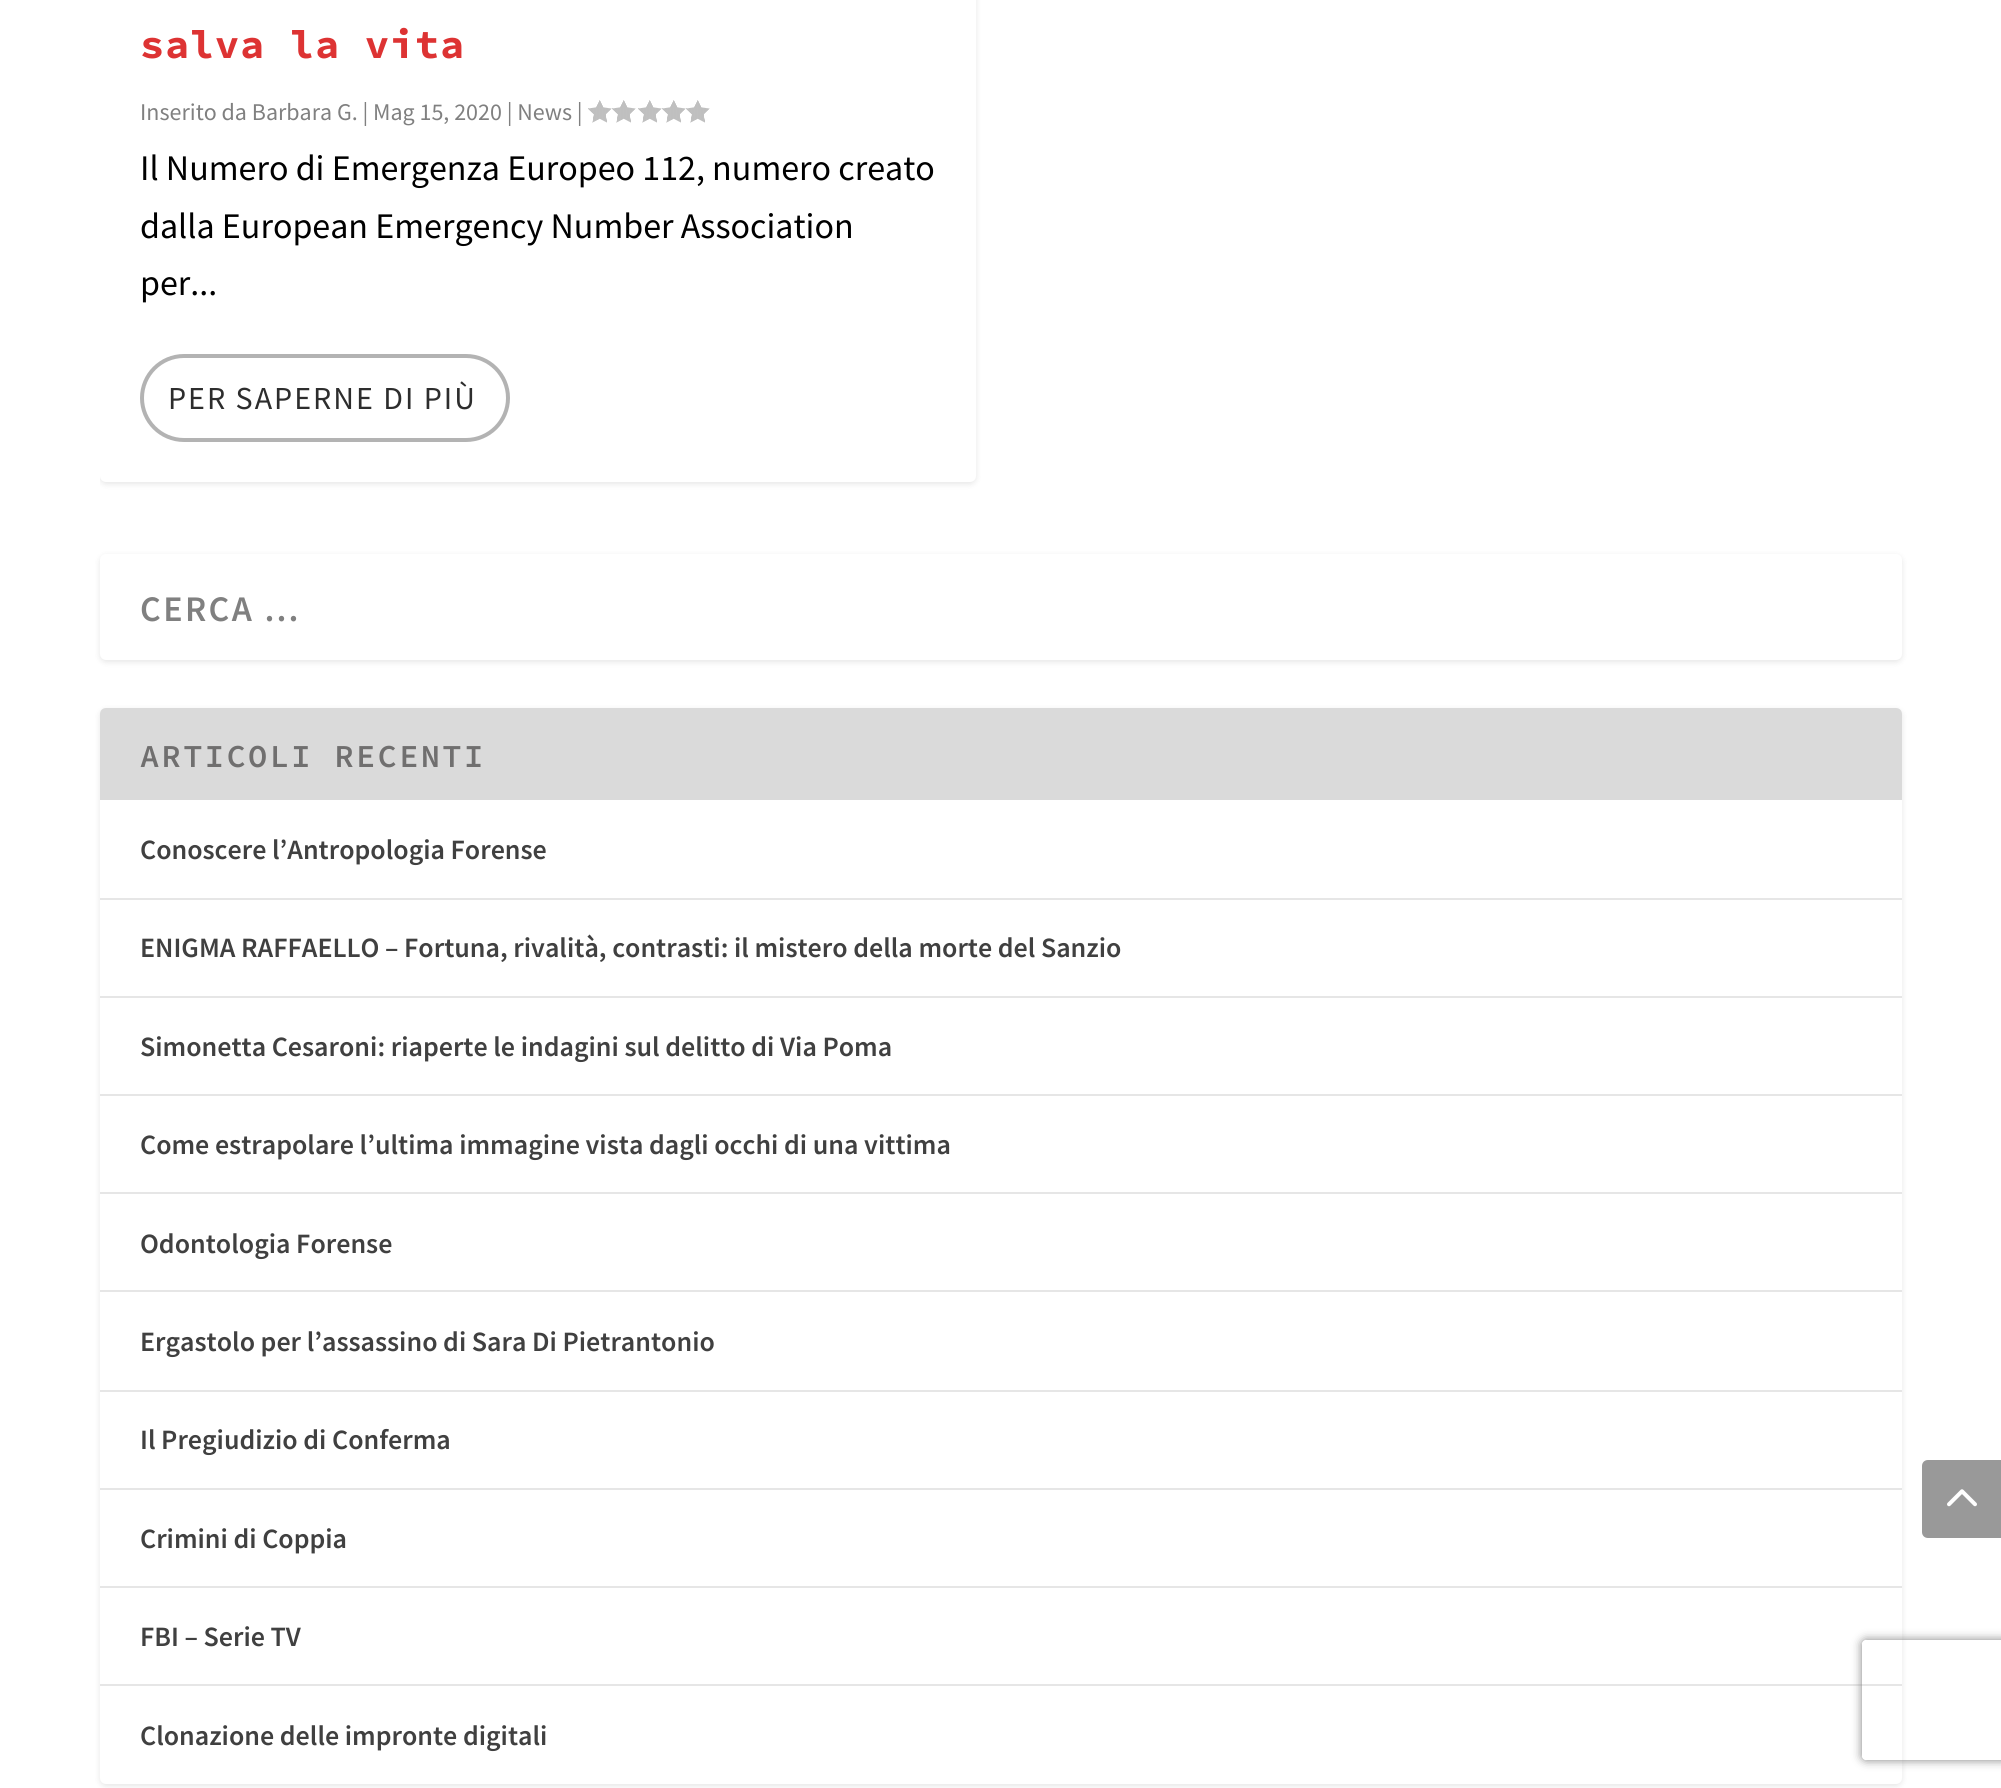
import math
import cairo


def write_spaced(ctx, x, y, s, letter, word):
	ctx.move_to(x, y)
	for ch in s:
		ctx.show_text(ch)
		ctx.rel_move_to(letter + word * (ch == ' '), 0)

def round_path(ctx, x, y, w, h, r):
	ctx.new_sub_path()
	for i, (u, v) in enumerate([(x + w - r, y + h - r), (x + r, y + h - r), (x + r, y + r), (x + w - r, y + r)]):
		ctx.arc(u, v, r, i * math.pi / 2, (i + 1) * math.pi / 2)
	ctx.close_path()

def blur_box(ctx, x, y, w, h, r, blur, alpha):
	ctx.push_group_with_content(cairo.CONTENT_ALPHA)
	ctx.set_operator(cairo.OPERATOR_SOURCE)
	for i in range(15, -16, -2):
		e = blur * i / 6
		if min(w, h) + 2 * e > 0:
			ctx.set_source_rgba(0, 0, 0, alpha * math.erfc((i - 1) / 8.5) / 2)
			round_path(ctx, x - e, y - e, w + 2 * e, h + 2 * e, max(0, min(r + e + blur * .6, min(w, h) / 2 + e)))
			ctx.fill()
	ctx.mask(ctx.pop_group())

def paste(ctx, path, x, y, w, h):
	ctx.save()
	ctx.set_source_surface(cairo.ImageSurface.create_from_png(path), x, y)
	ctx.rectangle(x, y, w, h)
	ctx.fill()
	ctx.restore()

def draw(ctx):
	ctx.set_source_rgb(1, 1, 1)
	ctx.paint()
	ctx.save()
	round_path(ctx, 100, -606, 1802, 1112, 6)
	ctx.clip()
	ctx.set_source_rgb(0, 0, 0)
	blur_box(ctx, 100, -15, 876, 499, 6, 3, 0.1)
	ctx.restore()
	ctx.set_source_rgb(1, 1, 1)
	round_path(ctx, 100, -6, 876, 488, 6)
	ctx.fill()
	ctx.select_font_face('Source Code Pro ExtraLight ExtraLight')
	ctx.set_font_size(40)
	ctx.set_source_rgb(0.867, 0.2, 0.2)
	write_spaced(ctx, 140, 58, 'salva la vita', 1, 0)
	ctx.select_font_face('Source Sans Pro')
	ctx.set_font_size(24)
	ctx.set_source_rgb(0.502, 0.502, 0.502)
	ctx.move_to(140, 120)
	ctx.show_text('Inserito da Barbara G. | Mag 15, 2020 | News |')
	paste(ctx, 'media/1.png', 588, 100, 24, 23)
	paste(ctx, 'media/1.png', 612, 100, 24, 23)
	paste(ctx, 'media/1.png', 638, 100, 24, 23)
	paste(ctx, 'media/1.png', 662, 100, 24, 23)
	paste(ctx, 'media/1.png', 686, 100, 24, 23)
	ctx.set_font_size(36)
	ctx.set_source_rgb(0, 0, 0)
	for x, y, s in [
		(140, 180, 'Il Numero di Emergenza Europeo 112, numero creato'),
		(140, 238, 'dalla European Emergency Number Association'),
		(140, 295, 'per...'),
	]:
		ctx.move_to(x, y)
		ctx.show_text(s)
	round_path(ctx, 142, 356, 366, 84, 42)
	ctx.set_source_rgb(0.702, 0.702, 0.702)
	ctx.set_line_width(4)
	ctx.stroke()
	ctx.set_font_size(32)
	ctx.set_source_rgb(0.176, 0.176, 0.176)
	write_spaced(ctx, 168, 409, 'PER SAPERNE DI PIÙ', 2, 0)
	ctx.set_source_rgb(0, 0, 0)
	blur_box(ctx, 100, 556, 1802, 106, 6, 3, 0.1)
	ctx.set_source_rgb(1, 1, 1)
	round_path(ctx, 100, 554, 1802, 106, 6)
	ctx.fill()
	ctx.select_font_face('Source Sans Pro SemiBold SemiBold')
	ctx.set_font_size(36)
	ctx.set_source_rgb(0.502, 0.502, 0.502)
	write_spaced(ctx, 140, 621, 'CERCA …', 2.4, 0)
	ctx.set_source_rgb(0, 0, 0)
	blur_box(ctx, 100, 710, 1802, 1076, 6, 3, 0.1)
	ctx.set_source_rgb(1, 1, 1)
	round_path(ctx, 100, 708, 1802, 1076, 6)
	ctx.fill()
	ctx.set_source_rgb(0.855, 0.855, 0.855)
	ctx.new_path()
	ctx.move_to(106, 708)
	ctx.line_to(1896, 708)
	ctx.curve_to(1899.5, 708, 1902, 710.5, 1902, 714)
	ctx.line_to(1902, 800)
	ctx.line_to(100, 800)
	ctx.line_to(100, 714)
	ctx.curve_to(100, 710.5, 102.5, 708, 106, 708)
	ctx.close_path()
	ctx.fill()
	ctx.select_font_face('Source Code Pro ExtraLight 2 ExtraLight')
	ctx.set_font_size(32)
	ctx.set_source_rgb(0.439, 0.435, 0.435)
	write_spaced(ctx, 140, 767, 'ARTICOLI RECENTI', 2.4, 0)
	ctx.set_source_rgb(0.902, 0.902, 0.902)
	ctx.rectangle(100, 898, 1802, 2)
	ctx.fill()
	ctx.select_font_face('Source Sans Pro SemiBold SemiBold')
	ctx.set_font_size(28)
	ctx.set_source_rgb(0.251, 0.251, 0.251)
	ctx.move_to(140, 859)
	ctx.show_text('Conoscere l’Antropologia Forense')
	ctx.set_source_rgb(0.902, 0.902, 0.902)
	ctx.rectangle(100, 996, 1802, 2)
	ctx.fill()
	ctx.set_source_rgb(0.251, 0.251, 0.251)
	ctx.move_to(140, 957)
	ctx.show_text('ENIGMA RAFFAELLO – Fortuna, rivalità, contrasti: il mistero della morte del Sanzio')
	ctx.set_source_rgb(0.902, 0.902, 0.902)
	ctx.rectangle(100, 1094, 1802, 2)
	ctx.fill()
	ctx.set_source_rgb(0.251, 0.251, 0.251)
	ctx.move_to(140, 1056)
	ctx.show_text('Simonetta Cesaroni: riaperte le indagini sul delitto di Via Poma')
	ctx.set_source_rgb(0.902, 0.902, 0.902)
	ctx.rectangle(100, 1192, 1802, 2)
	ctx.fill()
	ctx.set_source_rgb(0.251, 0.251, 0.251)
	ctx.move_to(140, 1154)
	ctx.show_text('Come estrapolare l’ultima immagine vista dagli occhi di una vittima')
	ctx.set_source_rgb(0.902, 0.902, 0.902)
	ctx.rectangle(100, 1290, 1802, 2)
	ctx.fill()
	ctx.set_source_rgb(0.251, 0.251, 0.251)
	ctx.move_to(140, 1253)
	ctx.show_text('Odontologia Forense')
	ctx.set_source_rgb(0.902, 0.902, 0.902)
	ctx.rectangle(100, 1390, 1802, 2)
	ctx.fill()
	ctx.set_source_rgb(0.251, 0.251, 0.251)
	ctx.move_to(140, 1351)
	ctx.show_text('Ergastolo per l’assassino di Sara Di Pietrantonio')
	ctx.set_source_rgb(0.902, 0.902, 0.902)
	ctx.rectangle(100, 1488, 1802, 2)
	ctx.fill()
	ctx.set_source_rgb(0.251, 0.251, 0.251)
	ctx.move_to(140, 1449)
	ctx.show_text('Il Pregiudizio di Conferma')
	ctx.set_source_rgb(0.902, 0.902, 0.902)
	ctx.rectangle(100, 1586, 1802, 2)
	ctx.fill()
	ctx.set_source_rgb(0.251, 0.251, 0.251)
	ctx.move_to(140, 1548)
	ctx.show_text('Crimini di Coppia')
	ctx.set_source_rgb(0.902, 0.902, 0.902)
	ctx.rectangle(100, 1684, 1802, 2)
	ctx.fill()
	ctx.set_source_rgb(0.251, 0.251, 0.251)
	ctx.move_to(140, 1646)
	ctx.show_text('FBI – Serie TV')
	ctx.move_to(140, 1745)
	ctx.show_text('Clonazione delle impronte digitali')
	ctx.set_source_rgb(0.6, 0.6, 0.6)
	ctx.new_path()
	ctx.move_to(1928, 1460)
	ctx.line_to(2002, 1460)
	ctx.line_to(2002, 1538)
	ctx.line_to(1928, 1538)
	ctx.curve_to(1924.5, 1538, 1922, 1535.5, 1922, 1532)
	ctx.line_to(1922, 1466)
	ctx.curve_to(1922, 1462.5, 1924.5, 1460, 1928, 1460)
	ctx.close_path()
	ctx.fill()
	paste(ctx, 'media/2.png', 1947, 1489, 30, 18)
	ctx.save()
	ctx.set_fill_rule(cairo.FILL_RULE_EVEN_ODD)
	ctx.new_path()
	ctx.move_to(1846, 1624)
	ctx.line_to(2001, 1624)
	ctx.line_to(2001, 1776)
	ctx.line_to(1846, 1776)
	ctx.close_path()
	ctx.move_to(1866, 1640)
	ctx.line_to(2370, 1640)
	ctx.curve_to(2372, 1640, 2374, 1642, 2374, 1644)
	ctx.line_to(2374, 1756)
	ctx.curve_to(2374, 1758, 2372, 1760, 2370, 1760)
	ctx.line_to(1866, 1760)
	ctx.curve_to(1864, 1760, 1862, 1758, 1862, 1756)
	ctx.line_to(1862, 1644)
	ctx.curve_to(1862, 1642, 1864, 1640, 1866, 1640)
	ctx.close_path()
	ctx.clip()
	ctx.set_source_rgb(0.502, 0.502, 0.502)
	blur_box(ctx, 1862, 1640, 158, 120, 4, 5, 1)
	ctx.restore()


surface = cairo.ImageSurface(cairo.FORMAT_RGB24, 2001, 1788)
ctx = cairo.Context(surface)
options = cairo.FontOptions()
options.set_hint_metrics(cairo.HINT_METRICS_OFF)
options.set_hint_style(cairo.HINT_STYLE_NONE)
ctx.set_font_options(options)
ctx.set_miter_limit(4)
draw(ctx)
surface.write_to_png('image.png')
